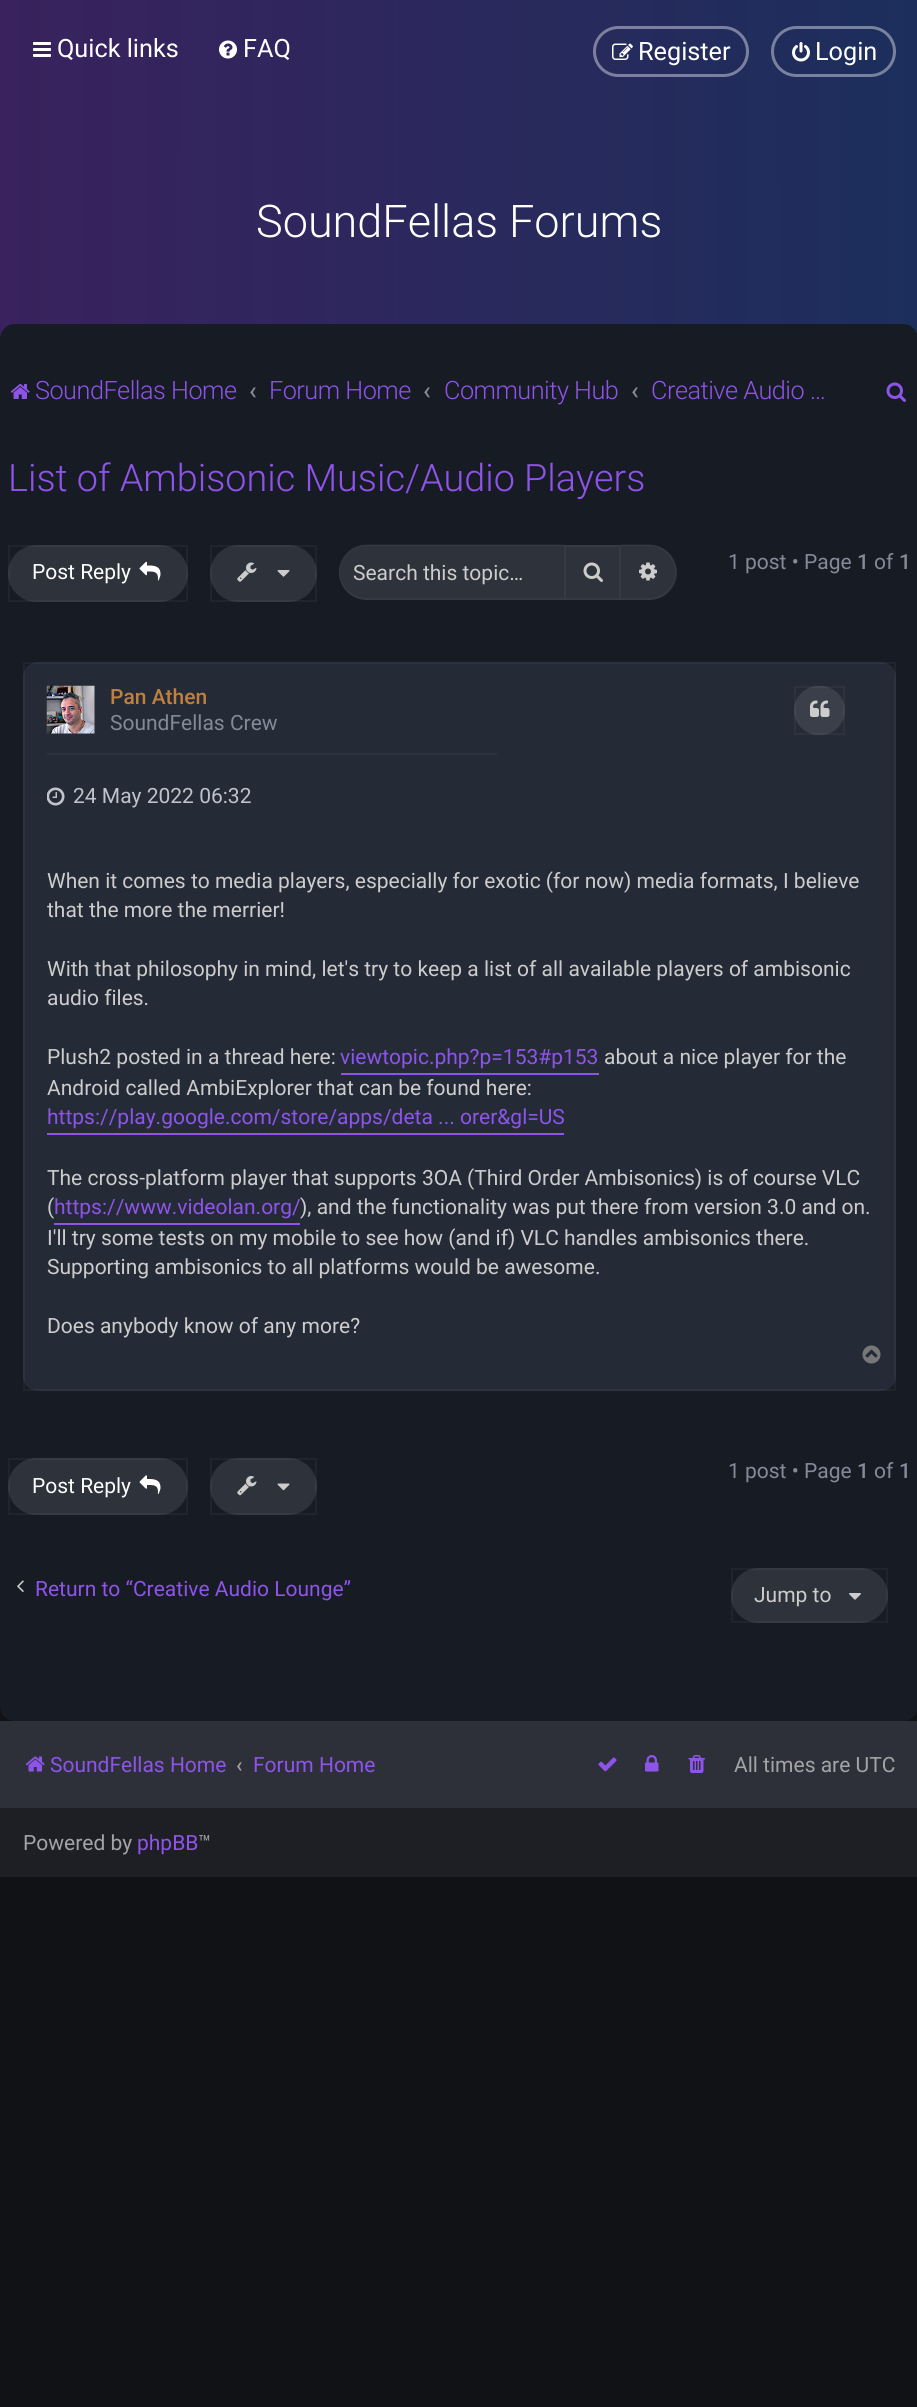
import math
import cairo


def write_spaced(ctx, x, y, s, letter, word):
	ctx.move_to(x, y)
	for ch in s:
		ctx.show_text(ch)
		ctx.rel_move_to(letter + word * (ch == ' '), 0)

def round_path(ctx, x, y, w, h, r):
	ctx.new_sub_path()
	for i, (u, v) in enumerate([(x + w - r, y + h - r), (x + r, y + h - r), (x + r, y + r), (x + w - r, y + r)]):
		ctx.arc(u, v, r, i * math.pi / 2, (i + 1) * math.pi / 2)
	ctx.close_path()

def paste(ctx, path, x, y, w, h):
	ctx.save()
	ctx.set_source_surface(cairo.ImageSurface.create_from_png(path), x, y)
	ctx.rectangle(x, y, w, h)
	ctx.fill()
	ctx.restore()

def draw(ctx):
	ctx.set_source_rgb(0.063, 0.071, 0.086)
	ctx.paint()
	gradient = cairo.LinearGradient(0, 200, 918, 199)
	gradient.add_color_stop_rgba(0, 0.224, 0.133, 0.365, 1)
	gradient.add_color_stop_rgba(1, 0.11, 0.184, 0.361, 1)
	ctx.set_source(gradient)
	ctx.rectangle(0, 0, 917, 339)
	ctx.fill()
	paste(ctx, 'media/1.png', 33, 42, 18, 15)
	ctx.select_font_face('Roboto')
	ctx.set_font_size(25.25)
	ctx.set_source_rgb(1, 1, 1)
	ctx.move_to(57, 57)
	ctx.show_text('Quick links')
	paste(ctx, 'media/2.png', 219, 40, 18, 19)
	ctx.move_to(243, 57)
	ctx.show_text('FAQ')
	round_path(ctx, 594.5, 27.5, 153, 48, 24)
	ctx.set_source_rgba(1, 1, 1, 0.4)
	ctx.set_line_width(3)
	ctx.stroke()
	paste(ctx, 'media/3.png', 612, 43, 21, 17)
	ctx.set_source_rgb(1, 1, 1)
	ctx.move_to(638, 60)
	ctx.show_text('Register')
	round_path(ctx, 772.5, 27.5, 122, 48, 24)
	ctx.set_source_rgba(1, 1, 1, 0.4)
	ctx.stroke()
	paste(ctx, 'media/4.png', 792, 42, 18, 20)
	ctx.set_source_rgb(1, 1, 1)
	ctx.move_to(815, 60)
	ctx.show_text('Login')
	ctx.select_font_face('Roboto Light')
	ctx.set_font_size(45)
	ctx.move_to(256, 237)
	ctx.show_text('SoundFellas Forums')
	ctx.set_source_rgb(0.09, 0.106, 0.141)
	round_path(ctx, 0, 324, 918, 1397, 15)
	ctx.fill()
	paste(ctx, 'media/5.png', 10, 384, 20, 15)
	ctx.set_font_size(25.25)
	ctx.set_source_rgb(0.557, 0.329, 0.914)
	write_spaced(ctx, 35, 399, 'SoundFellas Home', -0.5, 0)
	ctx.select_font_face('Roboto Medium')
	ctx.set_source_rgb(0.514, 0.545, 0.596)
	ctx.move_to(249, 399)
	ctx.show_text('‹')
	ctx.select_font_face('Roboto Light')
	ctx.set_source_rgb(0.557, 0.329, 0.914)
	write_spaced(ctx, 269, 399, 'Forum Home', -0.5, 0)
	ctx.select_font_face('Roboto Medium')
	ctx.set_source_rgb(0.514, 0.545, 0.596)
	ctx.move_to(423, 399)
	ctx.show_text('‹')
	ctx.select_font_face('Roboto Light')
	ctx.set_source_rgb(0.557, 0.329, 0.914)
	write_spaced(ctx, 444, 399, 'Community Hub', -0.5, 0)
	ctx.select_font_face('Roboto Medium')
	ctx.set_source_rgb(0.514, 0.545, 0.596)
	ctx.move_to(631, 399)
	ctx.show_text('‹')
	ctx.select_font_face('Roboto Light')
	ctx.set_source_rgb(0.557, 0.329, 0.914)
	write_spaced(ctx, 651, 399, 'Creative Audio …', -0.5, 0)
	paste(ctx, 'media/6.png', 886, 382, 20, 20)
	ctx.set_font_size(37.75)
	ctx.move_to(8, 491)
	ctx.show_text('List of Ambisonic Music/Audio Players')
	ctx.set_source_rgb(0.18, 0.196, 0.227)
	round_path(ctx, 8, 545, 180, 57, 28.5)
	ctx.fill()
	ctx.rectangle(9, 546, 178, 55)
	ctx.set_source_rgba(1, 1, 1, 0.04)
	ctx.set_line_width(2)
	ctx.stroke()
	ctx.select_font_face('Roboto')
	ctx.set_font_size(21)
	ctx.set_source_rgb(1, 1, 1)
	ctx.move_to(32, 579)
	ctx.show_text('Post Reply')
	paste(ctx, 'media/7.png', 139, 561, 22, 20)
	ctx.set_source_rgb(0.18, 0.196, 0.227)
	round_path(ctx, 210, 545, 107, 57, 28.5)
	ctx.fill()
	ctx.rectangle(211, 546, 105, 55)
	ctx.set_source_rgba(1, 1, 1, 0.04)
	ctx.stroke()
	paste(ctx, 'media/8.png', 237, 562, 20, 20)
	paste(ctx, 'media/9.png', 277, 570, 13, 7)
	ctx.set_source_rgb(0.18, 0.196, 0.227)
	ctx.new_path()
	ctx.move_to(366.5, 545)
	ctx.line_to(564, 545)
	ctx.line_to(564, 600)
	ctx.line_to(366.5, 600)
	ctx.curve_to(351.5, 600, 339, 587.5, 339, 572.5)
	ctx.curve_to(339, 557.5, 351.5, 545, 366.5, 545)
	ctx.close_path()
	ctx.fill()
	ctx.set_source_rgba(1, 1, 1, 0.04)
	ctx.set_fill_rule(cairo.FILL_RULE_EVEN_ODD)
	ctx.new_path()
	ctx.move_to(367, 544)
	ctx.line_to(564, 544)
	ctx.line_to(564, 600)
	ctx.line_to(367, 600)
	ctx.curve_to(351, 600, 339, 588, 339, 572)
	ctx.curve_to(339, 557, 351, 544, 367, 544)
	ctx.close_path()
	ctx.move_to(367, 546)
	ctx.line_to(564, 546)
	ctx.line_to(564, 598)
	ctx.line_to(367, 598)
	ctx.curve_to(352, 598, 340, 587, 340, 572)
	ctx.curve_to(340, 558, 352, 546, 367, 546)
	ctx.close_path()
	ctx.fill()
	ctx.set_source_rgb(0.8, 0.8, 0.8)
	ctx.move_to(353, 580)
	ctx.show_text('Search this topic…')
	ctx.set_source_rgb(0.18, 0.196, 0.227)
	ctx.rectangle(565, 546, 55, 53)
	ctx.fill_preserve()
	ctx.set_source_rgb(0.212, 0.227, 0.259)
	ctx.stroke()
	paste(ctx, 'media/10.png', 583, 562, 20, 20)
	ctx.set_source_rgb(0.18, 0.196, 0.227)
	ctx.new_path()
	ctx.move_to(621, 545)
	ctx.line_to(649.5, 545)
	ctx.curve_to(664.5, 545, 677, 557.5, 677, 572.5)
	ctx.curve_to(677, 587.5, 664.5, 600, 649.5, 600)
	ctx.line_to(621, 600)
	ctx.close_path()
	ctx.fill()
	ctx.set_source_rgba(1, 1, 1, 0.04)
	ctx.new_path()
	ctx.move_to(621, 544)
	ctx.line_to(649, 544)
	ctx.curve_to(664, 544, 676, 557, 676, 572)
	ctx.curve_to(676, 588, 664, 600, 649, 600)
	ctx.line_to(621, 600)
	ctx.close_path()
	ctx.move_to(621, 546)
	ctx.line_to(649, 546)
	ctx.curve_to(663, 546, 675, 558, 675, 572)
	ctx.curve_to(675, 587, 663, 598, 649, 598)
	ctx.line_to(621, 598)
	ctx.close_path()
	ctx.fill()
	paste(ctx, 'media/11.png', 639, 562, 18, 19)
	ctx.set_source_rgb(0.514, 0.545, 0.596)
	ctx.move_to(728, 569)
	ctx.show_text('1 post • Page')
	ctx.select_font_face('Roboto Medium')
	ctx.move_to(857, 569)
	ctx.show_text('1')
	ctx.select_font_face('Roboto')
	ctx.move_to(874, 569)
	ctx.show_text('of')
	ctx.select_font_face('Roboto Medium')
	ctx.move_to(899, 569)
	ctx.show_text('1')
	ctx.set_source_rgb(0.141, 0.165, 0.212)
	round_path(ctx, 23, 662, 873, 729, 15)
	ctx.fill()
	ctx.rectangle(24, 663, 871, 727)
	ctx.set_source_rgba(1, 1, 1, 0.04)
	ctx.stroke()
	ctx.set_source_rgb(0.176, 0.2, 0.243)
	ctx.rectangle(47, 753, 450, 2)
	ctx.fill()
	paste(ctx, 'media/12.png', 46, 685, 49, 49)
	ctx.set_source_rgb(0.749, 0.502, 0.251)
	ctx.move_to(110, 704)
	ctx.show_text('Pan Athen')
	ctx.select_font_face('Roboto')
	ctx.set_source_rgb(0.514, 0.545, 0.596)
	ctx.move_to(110, 730)
	ctx.show_text('SoundFellas Crew')
	ctx.set_source_rgb(0.227, 0.247, 0.29)
	round_path(ctx, 794, 686, 51, 49, 24.5)
	ctx.fill()
	ctx.rectangle(795, 687, 49, 47)
	ctx.set_source_rgba(1, 1, 1, 0.04)
	ctx.stroke()
	paste(ctx, 'media/13.png', 810, 700, 20, 17)
	paste(ctx, 'media/14.png', 47, 787, 18, 19)
	ctx.set_source_rgb(0.745, 0.769, 0.788)
	ctx.move_to(73, 803)
	ctx.show_text('24 May 2022 06:32')
	ctx.set_source_rgb(0.8, 0.8, 0.8)
	for x, y, s in [
		(47, 888, 'When it comes to media players, especially for exotic (for now) media formats, I believe'),
		(47, 917, 'that the more the merrier!'),
		(47, 976, 'With that philosophy in mind, let\'s try to keep a list of all available players of ambisonic'),
		(47, 1005, 'audio files.'),
		(47, 1064, 'Plush2 posted in a thread here:'),
	]:
		ctx.move_to(x, y)
		ctx.show_text(s)
	ctx.set_source_rgb(0.557, 0.329, 0.914)
	ctx.rectangle(341, 1073, 258, 2)
	ctx.fill()
	ctx.move_to(340, 1064)
	ctx.show_text('viewtopic.php?p=153#p153')
	ctx.set_source_rgb(0.8, 0.8, 0.8)
	ctx.move_to(604, 1064)
	ctx.show_text('about a nice player for the')
	ctx.move_to(47, 1095)
	ctx.show_text('Android called AmbiExplorer that can be found here:')
	ctx.set_source_rgb(0.557, 0.329, 0.914)
	ctx.rectangle(47, 1133, 517, 2)
	ctx.fill()
	ctx.move_to(47, 1124)
	ctx.show_text('https://play.google.com/store/apps/deta ... orer&gl=US')
	ctx.set_source_rgb(0.8, 0.8, 0.8)
	ctx.move_to(47, 1185)
	ctx.show_text('The cross-platform player that supports 3OA (Third Order Ambisonics) is of course VLC')
	ctx.move_to(47, 1214)
	ctx.show_text('(')
	ctx.set_source_rgb(0.557, 0.329, 0.914)
	ctx.rectangle(54, 1223, 246, 2)
	ctx.fill()
	ctx.move_to(54, 1214)
	ctx.show_text('https://www.videolan.org/')
	ctx.set_source_rgb(0.8, 0.8, 0.8)
	for x, y, s in [
		(300, 1214, '), and the functionality was put there from version 3.0 and on.'),
		(47, 1245, 'I\'ll try some tests on my mobile to see how (and if) VLC handles ambisonics there.'),
		(47, 1274, 'Supporting ambisonics to all platforms would be awesome.'),
		(47, 1333, 'Does anybody know of any more?'),
	]:
		ctx.move_to(x, y)
		ctx.show_text(s)
	paste(ctx, 'media/15.png', 862, 1345, 19, 19)
	ctx.set_source_rgb(0.18, 0.196, 0.227)
	round_path(ctx, 210, 1458, 107, 57, 28.5)
	ctx.fill()
	ctx.rectangle(211, 1459, 105, 55)
	ctx.set_source_rgba(1, 1, 1, 0.04)
	ctx.stroke()
	paste(ctx, 'media/16.png', 237, 1476, 20, 20)
	paste(ctx, 'media/17.png', 277, 1483, 13, 8)
	ctx.set_source_rgb(0.514, 0.545, 0.596)
	ctx.move_to(728, 1478)
	ctx.show_text('1 post • Page')
	ctx.select_font_face('Roboto Medium')
	ctx.move_to(857, 1478)
	ctx.show_text('1')
	ctx.select_font_face('Roboto')
	ctx.move_to(874, 1478)
	ctx.show_text('of')
	ctx.select_font_face('Roboto Medium')
	ctx.move_to(899, 1478)
	ctx.show_text('1')
	ctx.set_source_rgb(0.18, 0.196, 0.227)
	round_path(ctx, 8, 1458, 180, 57, 28.5)
	ctx.fill()
	ctx.rectangle(9, 1459, 178, 55)
	ctx.set_source_rgba(1, 1, 1, 0.04)
	ctx.stroke()
	ctx.select_font_face('Roboto')
	ctx.set_source_rgb(1, 1, 1)
	ctx.move_to(32, 1493)
	ctx.show_text('Post Reply')
	paste(ctx, 'media/18.png', 139, 1475, 22, 19)
	paste(ctx, 'media/19.png', 17, 1580, 7, 12)
	ctx.set_source_rgb(0.557, 0.329, 0.914)
	ctx.move_to(35, 1596)
	ctx.show_text('Return to “Creative Audio Lounge”')
	ctx.set_source_rgb(0.18, 0.196, 0.227)
	round_path(ctx, 731, 1568, 157, 55, 27.5)
	ctx.fill()
	ctx.rectangle(732, 1569, 155, 53)
	ctx.set_source_rgba(1, 1, 1, 0.04)
	ctx.stroke()
	ctx.set_source_rgb(0.8, 0.8, 0.8)
	ctx.move_to(754, 1602)
	ctx.show_text('Jump to')
	paste(ctx, 'media/20.png', 849, 1593, 12, 7)
	ctx.set_source_rgb(0.176, 0.188, 0.224)
	ctx.rectangle(0, 1721, 917, 87)
	ctx.fill()
	paste(ctx, 'media/21.png', 25, 1756, 20, 16)
	ctx.set_source_rgb(0.557, 0.329, 0.914)
	ctx.move_to(50, 1772)
	ctx.show_text('SoundFellas Home')
	ctx.select_font_face('Roboto Medium')
	ctx.set_source_rgb(0.643, 0.643, 0.655)
	ctx.move_to(236, 1772)
	ctx.show_text('‹')
	ctx.select_font_face('Roboto')
	ctx.set_source_rgb(0.557, 0.329, 0.914)
	ctx.move_to(253, 1772)
	ctx.show_text('Forum Home')
	paste(ctx, 'media/22.png', 598, 1757, 19, 15)
	paste(ctx, 'media/23.png', 645, 1755, 14, 17)
	paste(ctx, 'media/24.png', 688, 1755, 17, 18)
	ctx.set_source_rgb(0.643, 0.643, 0.655)
	ctx.move_to(734, 1772)
	ctx.show_text('All times are UTC')
	ctx.set_source_rgb(0.114, 0.122, 0.145)
	ctx.rectangle(0, 1808, 917, 69)
	ctx.fill()
	ctx.set_source_rgb(0.643, 0.643, 0.655)
	ctx.move_to(23, 1850)
	ctx.show_text('Powered by')
	ctx.set_source_rgb(0.557, 0.329, 0.914)
	ctx.move_to(137, 1850)
	ctx.show_text('phpBB')
	ctx.set_source_rgb(0.643, 0.643, 0.655)
	ctx.move_to(198, 1850)
	ctx.show_text('™')


surface = cairo.ImageSurface(cairo.FORMAT_RGB24, 917, 2407)
ctx = cairo.Context(surface)
options = cairo.FontOptions()
options.set_hint_metrics(cairo.HINT_METRICS_OFF)
options.set_hint_style(cairo.HINT_STYLE_NONE)
ctx.set_font_options(options)
ctx.set_miter_limit(4)
draw(ctx)
surface.write_to_png('image.png')
